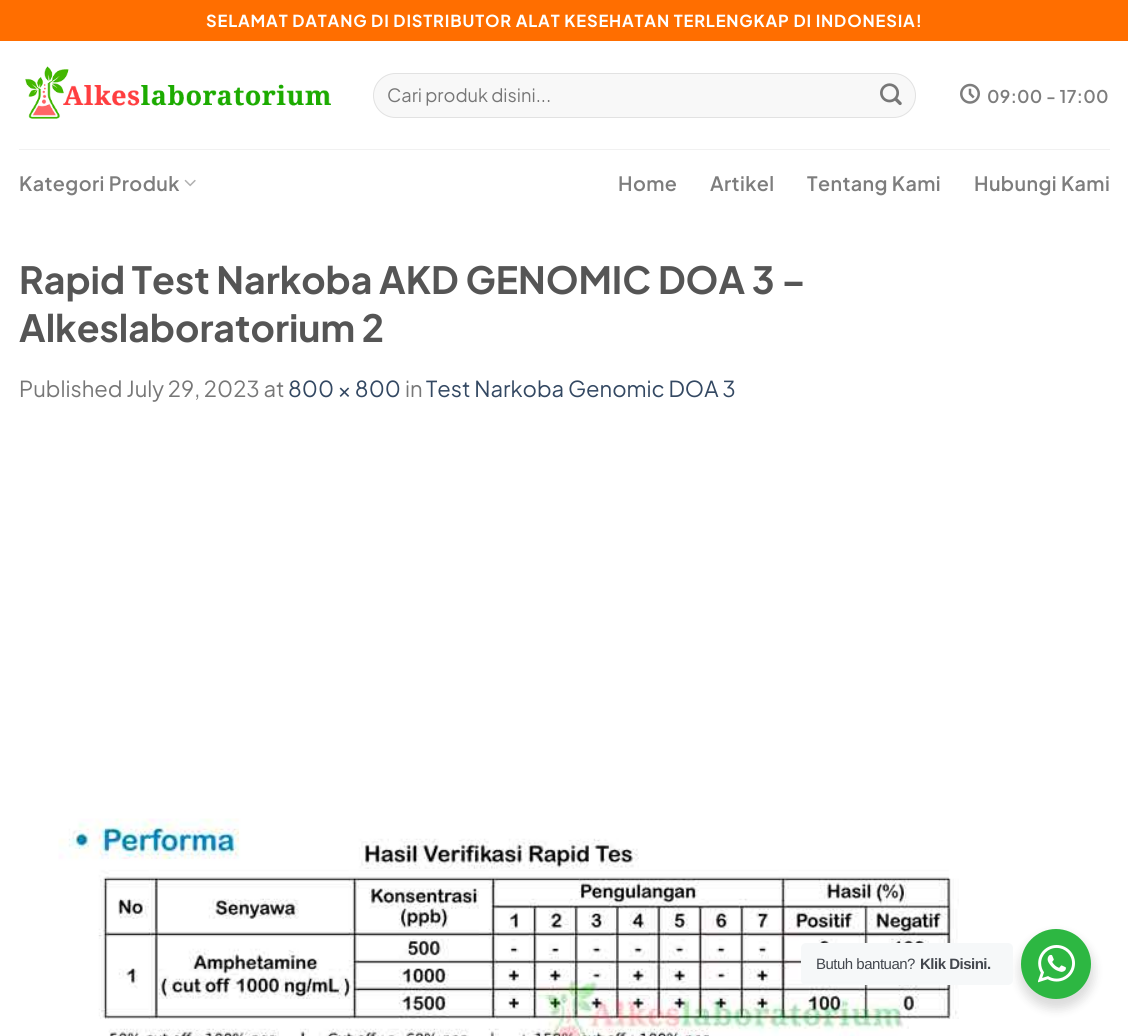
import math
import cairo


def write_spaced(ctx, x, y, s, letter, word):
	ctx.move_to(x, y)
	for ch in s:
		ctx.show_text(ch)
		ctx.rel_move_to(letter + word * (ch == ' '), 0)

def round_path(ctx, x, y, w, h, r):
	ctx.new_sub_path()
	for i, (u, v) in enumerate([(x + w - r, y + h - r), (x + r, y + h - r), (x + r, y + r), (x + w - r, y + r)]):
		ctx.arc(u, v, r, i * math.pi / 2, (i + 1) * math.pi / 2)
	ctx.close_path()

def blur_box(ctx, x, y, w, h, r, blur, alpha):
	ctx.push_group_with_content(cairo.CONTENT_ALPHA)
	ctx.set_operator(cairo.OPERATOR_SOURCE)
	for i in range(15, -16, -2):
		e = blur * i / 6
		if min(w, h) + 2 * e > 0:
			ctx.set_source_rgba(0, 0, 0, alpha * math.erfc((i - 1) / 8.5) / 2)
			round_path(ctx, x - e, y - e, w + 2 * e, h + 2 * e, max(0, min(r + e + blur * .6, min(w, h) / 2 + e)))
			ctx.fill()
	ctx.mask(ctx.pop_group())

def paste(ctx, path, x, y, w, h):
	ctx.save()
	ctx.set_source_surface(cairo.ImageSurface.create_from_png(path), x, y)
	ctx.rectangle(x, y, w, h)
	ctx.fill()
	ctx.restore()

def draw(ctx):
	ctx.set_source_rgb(1, 1, 1)
	ctx.paint()
	ctx.set_source_rgb(1, 0.431, 0)
	ctx.rectangle(0, 0, 1128, 41)
	ctx.fill()
	ctx.select_font_face('Plus Jakarta Sans', cairo.FONT_SLANT_NORMAL, cairo.FONT_WEIGHT_BOLD)
	ctx.set_font_size(16.5)
	ctx.set_source_rgb(1, 1, 1)
	write_spaced(ctx, 206, 27, 'SELAMAT DATANG DI DISTRIBUTOR ALAT KESEHATAN TERLENGKAP DI INDONESIA!', 0.83, 0)
	paste(ctx, 'media/1.png', 25, 66, 306, 53)
	ctx.set_source_rgb(0.969, 0.969, 0.969)
	round_path(ctx, 373, 73, 543, 45, 22.5)
	ctx.fill()
	round_path(ctx, 373.5, 73.5, 542, 44, 22)
	ctx.set_source_rgba(0, 0, 0, 0.09)
	ctx.set_line_width(1)
	ctx.stroke()
	ctx.select_font_face('Plus Jakarta Sans')
	ctx.set_font_size(18.25)
	ctx.set_source_rgb(0.467, 0.467, 0.467)
	ctx.move_to(387, 102)
	ctx.show_text('Cari produk disini...')
	paste(ctx, 'media/2.png', 880, 83, 22, 23)
	paste(ctx, 'media/3.png', 960, 83, 20, 21)
	ctx.select_font_face('Plus Jakarta Sans SemiBold')
	ctx.set_font_size(17.5)
	ctx.set_source_rgb(0.49, 0.49, 0.49)
	write_spaced(ctx, 987, 103, '09:00 - 17:00', 0.3, 0)
	ctx.set_source_rgb(0.945, 0.945, 0.945)
	ctx.rectangle(19, 149, 1091, 1)
	ctx.fill()
	ctx.set_font_size(19.75)
	ctx.set_source_rgb(0.49, 0.49, 0.49)
	write_spaced(ctx, 19, 191, 'Kategori Produk', 0.4, 0)
	paste(ctx, 'media/4.png', 184, 179, 12, 8)
	for x, y, s in [
		(618, 191, 'Home'),
		(710, 191, 'Artikel'),
		(807, 191, 'Tentang Kami'),
		(974, 191, 'Hubungi Kami'),
	]:
		write_spaced(ctx, x, y, s, 0.4, 0)
	ctx.select_font_face('Plus Jakarta Sans', cairo.FONT_SLANT_NORMAL, cairo.FONT_WEIGHT_BOLD)
	ctx.set_font_size(37.4)
	ctx.set_source_rgb(0.333, 0.333, 0.333)
	ctx.move_to(19, 294)
	ctx.show_text('Rapid Test Narkoba AKD GENOMIC DOA 3 –')
	ctx.move_to(19, 342)
	ctx.show_text('Alkeslaboratorium 2')
	ctx.select_font_face('Plus Jakarta Sans')
	ctx.set_font_size(22)
	ctx.set_source_rgb(0.467, 0.467, 0.467)
	ctx.move_to(19, 397)
	ctx.show_text('Published July 29, 2023 at')
	ctx.set_source_rgb(0.2, 0.282, 0.384)
	ctx.move_to(288, 397)
	ctx.show_text('800 × 800')
	ctx.set_source_rgb(0.467, 0.467, 0.467)
	ctx.move_to(405, 397)
	ctx.show_text('in')
	ctx.set_source_rgb(0.2, 0.282, 0.384)
	ctx.move_to(426, 397)
	ctx.show_text('Test Narkoba Genomic DOA 3')
	paste(ctx, 'media/5.png', 58, 818, 901, 218)
	ctx.set_source_rgb(0, 0, 0)
	blur_box(ctx, 1019, 934, 75, 75, 37.5, 5, 0.14)
	ctx.set_source_rgb(0.961, 0.969, 0.976)
	round_path(ctx, 801, 943, 212, 42, 5)
	ctx.fill()
	ctx.select_font_face('Liberation Sans')
	ctx.set_font_size(15)
	ctx.set_source_rgb(0.263, 0.278, 0.306)
	write_spaced(ctx, 816, 969, 'Butuh bantuan?', -0.5, 0)
	ctx.select_font_face('Liberation Sans', cairo.FONT_SLANT_NORMAL, cairo.FONT_WEIGHT_BOLD)
	write_spaced(ctx, 920, 969, 'Klik Disini.', -0.5, 0)
	ctx.set_source_rgb(0.176, 0.718, 0.259)
	ctx.new_path()
	ctx.arc(1056, 964, 35, 0, 2 * math.pi)
	ctx.fill()
	paste(ctx, 'media/6.png', 1038, 945, 37, 38)


surface = cairo.ImageSurface(cairo.FORMAT_RGB24, 1128, 1036)
ctx = cairo.Context(surface)
options = cairo.FontOptions()
options.set_hint_metrics(cairo.HINT_METRICS_OFF)
options.set_hint_style(cairo.HINT_STYLE_NONE)
ctx.set_font_options(options)
ctx.set_miter_limit(4)
draw(ctx)
surface.write_to_png('image.png')
